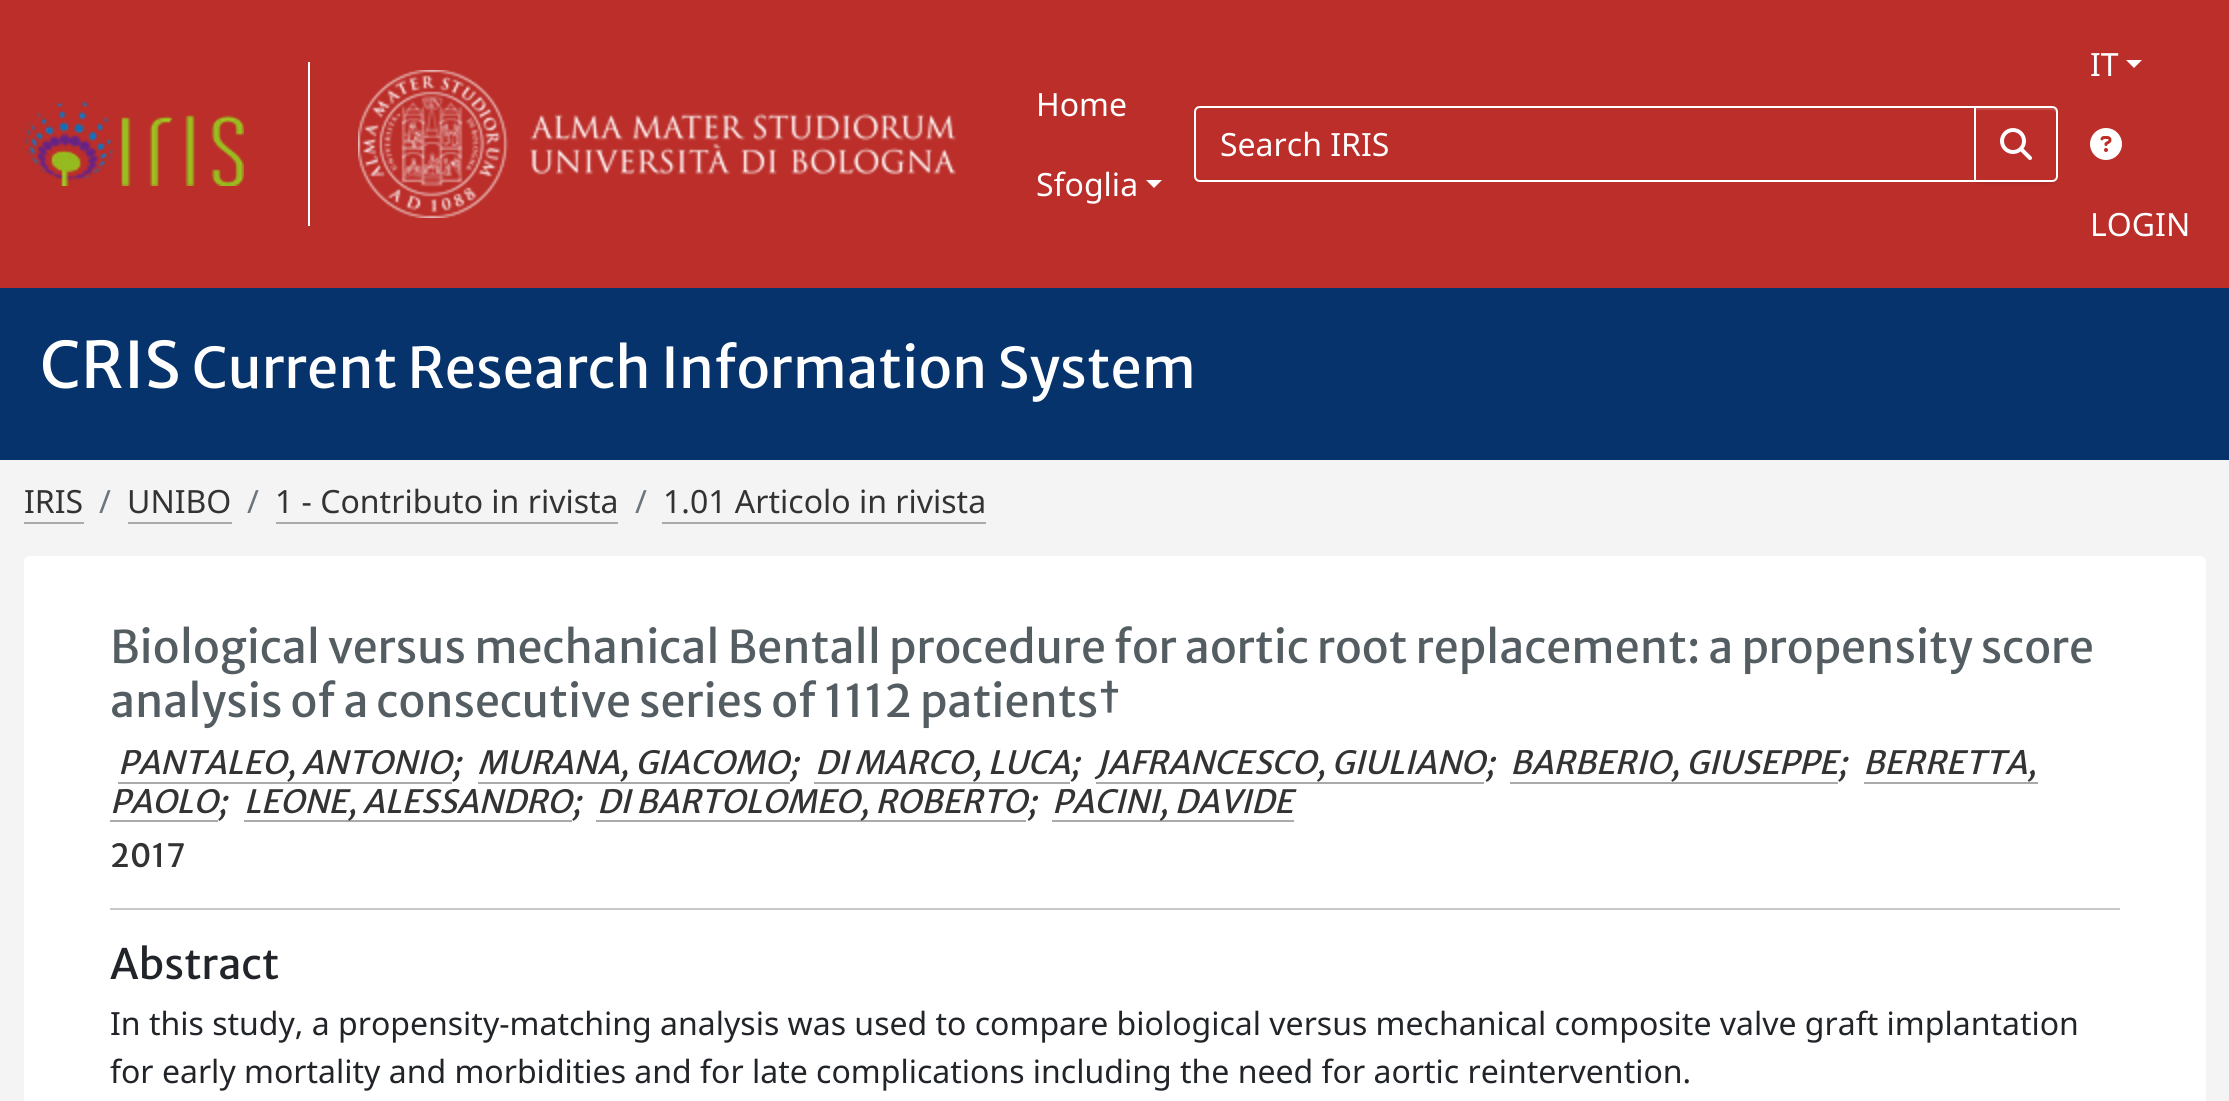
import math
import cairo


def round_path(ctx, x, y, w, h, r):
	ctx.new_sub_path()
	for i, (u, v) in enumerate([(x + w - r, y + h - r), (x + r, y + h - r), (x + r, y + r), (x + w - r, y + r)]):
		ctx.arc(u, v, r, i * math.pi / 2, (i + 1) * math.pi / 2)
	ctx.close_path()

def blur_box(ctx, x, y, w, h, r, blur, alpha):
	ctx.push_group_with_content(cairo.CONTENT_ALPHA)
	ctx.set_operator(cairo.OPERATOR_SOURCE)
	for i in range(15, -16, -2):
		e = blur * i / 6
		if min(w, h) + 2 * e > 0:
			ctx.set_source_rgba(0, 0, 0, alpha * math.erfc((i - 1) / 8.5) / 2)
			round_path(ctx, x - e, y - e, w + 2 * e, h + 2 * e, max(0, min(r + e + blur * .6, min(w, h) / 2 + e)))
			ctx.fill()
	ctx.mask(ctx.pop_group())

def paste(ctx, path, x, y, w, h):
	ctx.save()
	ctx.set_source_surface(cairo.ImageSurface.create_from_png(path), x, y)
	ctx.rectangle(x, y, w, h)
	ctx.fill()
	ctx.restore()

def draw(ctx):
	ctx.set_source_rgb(0.957, 0.957, 0.957)
	ctx.paint()
	ctx.set_source_rgb(0.733, 0.18, 0.161)
	ctx.rectangle(0, 0, 2229, 288)
	ctx.fill()
	paste(ctx, 'media/1.png', 24, 102, 220, 84)
	ctx.set_source_rgb(1, 1, 1)
	ctx.rectangle(308, 62, 2, 164)
	ctx.fill()
	paste(ctx, 'media/2.png', 358, 70, 598, 148)
	ctx.select_font_face('Noto Sans')
	ctx.set_font_size(32)
	ctx.move_to(1036, 116)
	ctx.show_text('Home')
	ctx.move_to(1036, 196)
	ctx.show_text('Sfoglia')
	ctx.new_path()
	ctx.move_to(1146, 180)
	ctx.line_to(1162, 180)
	ctx.line_to(1154, 188)
	ctx.close_path()
	ctx.fill()
	ctx.new_path()
	ctx.move_to(1200, 107)
	ctx.line_to(1975, 107)
	ctx.line_to(1975, 181)
	ctx.line_to(1200, 181)
	ctx.curve_to(1197, 181, 1195, 179, 1195, 176)
	ctx.line_to(1195, 112)
	ctx.curve_to(1195, 109, 1197, 107, 1200, 107)
	ctx.close_path()
	ctx.stroke()
	ctx.move_to(1220, 156)
	ctx.show_text('Search IRIS')
	ctx.set_source_rgb(0, 0, 0)
	blur_box(ctx, 1974, 108, 84, 76, 6, 1, 0.07)
	ctx.set_source_rgb(0.733, 0.18, 0.161)
	ctx.new_path()
	ctx.move_to(1974, 106)
	ctx.line_to(2052, 106)
	ctx.curve_to(2055.5, 106, 2058, 108.5, 2058, 112)
	ctx.line_to(2058, 176)
	ctx.curve_to(2058, 179.5, 2055.5, 182, 2052, 182)
	ctx.line_to(1974, 182)
	ctx.close_path()
	ctx.fill()
	ctx.set_source_rgb(0.773, 0.302, 0.286)
	ctx.new_path()
	ctx.move_to(1976, 110)
	ctx.line_to(2052, 110)
	ctx.curve_to(2054, 110, 2056, 112, 2056, 114)
	ctx.line_to(2056, 112)
	ctx.curve_to(2056, 110, 2054, 108, 2052, 108)
	ctx.line_to(1976, 108)
	ctx.close_path()
	ctx.fill()
	ctx.new_path()
	ctx.move_to(1975, 107)
	ctx.line_to(2052, 107)
	ctx.curve_to(2055, 107, 2057, 109, 2057, 112)
	ctx.line_to(2057, 176)
	ctx.curve_to(2057, 179, 2055, 181, 2052, 181)
	ctx.line_to(1975, 181)
	ctx.close_path()
	ctx.set_source_rgb(1, 1, 1)
	ctx.stroke()
	paste(ctx, 'media/3.png', 2000, 128, 32, 32)
	ctx.move_to(2090, 76)
	ctx.show_text('IT')
	ctx.new_path()
	ctx.move_to(2126, 60)
	ctx.line_to(2142, 60)
	ctx.line_to(2134, 68)
	ctx.close_path()
	ctx.fill()
	paste(ctx, 'media/4.png', 2090, 128, 32, 32)
	ctx.move_to(2090, 236)
	ctx.show_text('LOGIN')
	ctx.set_source_rgb(0.024, 0.2, 0.42)
	ctx.rectangle(0, 288, 2229, 172)
	ctx.fill()
	ctx.select_font_face('Merriweather Sans')
	ctx.set_font_size(64)
	ctx.set_source_rgb(1, 1, 1)
	ctx.move_to(40, 388)
	ctx.show_text('CRIS')
	ctx.set_font_size(56)
	ctx.move_to(192, 388)
	ctx.show_text('Current Research Information System')
	ctx.select_font_face('Noto Sans')
	ctx.set_font_size(32)
	ctx.set_source_rgb(0.2, 0.2, 0.2)
	ctx.move_to(24, 513)
	ctx.show_text('IRIS')
	ctx.set_source_rgb(0.667, 0.667, 0.667)
	ctx.rectangle(24, 522, 60, 2)
	ctx.fill()
	ctx.set_source_rgb(0.424, 0.459, 0.49)
	ctx.move_to(99, 513)
	ctx.show_text('/')
	ctx.set_source_rgb(0.2, 0.2, 0.2)
	ctx.move_to(127, 513)
	ctx.show_text('UNIBO')
	ctx.set_source_rgb(0.667, 0.667, 0.667)
	ctx.rectangle(128, 522, 104, 2)
	ctx.fill()
	ctx.set_source_rgb(0.424, 0.459, 0.49)
	ctx.move_to(247, 513)
	ctx.show_text('/')
	ctx.set_source_rgb(0.2, 0.2, 0.2)
	ctx.move_to(275, 513)
	ctx.show_text('1 - Contributo in rivista')
	ctx.set_source_rgb(0.667, 0.667, 0.667)
	ctx.rectangle(276, 522, 342, 2)
	ctx.fill()
	ctx.set_source_rgb(0.424, 0.459, 0.49)
	ctx.move_to(635, 513)
	ctx.show_text('/')
	ctx.set_source_rgb(0.2, 0.2, 0.2)
	ctx.move_to(663, 513)
	ctx.show_text('1.01 Articolo in rivista')
	ctx.set_source_rgb(0.667, 0.667, 0.667)
	ctx.rectangle(662, 522, 324, 2)
	ctx.fill()
	ctx.set_source_rgb(1, 1, 1)
	round_path(ctx, 24, 556, 2182, 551, 6)
	ctx.fill()
	ctx.select_font_face('Merriweather Sans')
	ctx.set_font_size(44.8)
	ctx.set_source_rgb(0.329, 0.365, 0.384)
	ctx.move_to(110, 663)
	ctx.show_text('Biological versus mechanical Bentall procedure for aortic root replacement: a propensity score')
	ctx.move_to(110, 717)
	ctx.show_text('analysis of a consecutive series of 1112 patients†')
	ctx.select_font_face('Merriweather Sans', cairo.FONT_SLANT_ITALIC)
	ctx.set_font_size(32)
	ctx.set_source_rgb(0.2, 0.2, 0.2)
	ctx.move_to(118, 774)
	ctx.show_text('PANTALEO, ANTONIO;')
	ctx.set_source_rgb(0.667, 0.667, 0.667)
	ctx.rectangle(118, 782, 334, 2)
	ctx.fill()
	ctx.set_source_rgb(0.2, 0.2, 0.2)
	ctx.move_to(477, 774)
	ctx.show_text('MURANA, GIACOMO;')
	ctx.set_source_rgb(0.667, 0.667, 0.667)
	ctx.rectangle(478, 782, 312, 2)
	ctx.fill()
	ctx.set_source_rgb(0.2, 0.2, 0.2)
	ctx.move_to(815, 774)
	ctx.show_text('DI MARCO, LUCA;')
	ctx.set_source_rgb(0.667, 0.667, 0.667)
	ctx.rectangle(814, 782, 256, 2)
	ctx.fill()
	ctx.set_source_rgb(0.2, 0.2, 0.2)
	ctx.move_to(1096, 774)
	ctx.show_text('JAFRANCESCO, GIULIANO;')
	ctx.set_source_rgb(0.667, 0.667, 0.667)
	ctx.rectangle(1096, 782, 388, 2)
	ctx.fill()
	ctx.set_source_rgb(0.2, 0.2, 0.2)
	ctx.move_to(1510, 774)
	ctx.show_text('BARBERIO, GIUSEPPE;')
	ctx.set_source_rgb(0.667, 0.667, 0.667)
	ctx.rectangle(1510, 782, 328, 2)
	ctx.fill()
	ctx.set_source_rgb(0.2, 0.2, 0.2)
	ctx.move_to(1863, 774)
	ctx.show_text('BERRETTA,')
	ctx.set_source_rgb(0.667, 0.667, 0.667)
	ctx.rectangle(1864, 782, 174, 2)
	ctx.fill()
	ctx.rectangle(110, 820, 108, 2)
	ctx.fill()
	ctx.set_source_rgb(0.2, 0.2, 0.2)
	ctx.move_to(110, 813)
	ctx.show_text('PAOLO;')
	ctx.set_source_rgb(0.667, 0.667, 0.667)
	ctx.rectangle(244, 820, 328, 2)
	ctx.fill()
	ctx.set_source_rgb(0.2, 0.2, 0.2)
	ctx.move_to(244, 813)
	ctx.show_text('LEONE, ALESSANDRO;')
	ctx.set_source_rgb(0.667, 0.667, 0.667)
	ctx.rectangle(596, 820, 430, 2)
	ctx.fill()
	ctx.set_source_rgb(0.2, 0.2, 0.2)
	ctx.move_to(597, 813)
	ctx.show_text('DI BARTOLOMEO, ROBERTO;')
	ctx.set_source_rgb(0.667, 0.667, 0.667)
	ctx.rectangle(1052, 820, 242, 2)
	ctx.fill()
	ctx.set_source_rgb(0.2, 0.2, 0.2)
	ctx.move_to(1052, 813)
	ctx.show_text('PACINI, DAVIDE')
	ctx.select_font_face('Merriweather Sans')
	ctx.move_to(110, 867)
	ctx.show_text('2017')
	ctx.set_source_rgb(0.784, 0.788, 0.792)
	ctx.rectangle(110, 908, 2010, 2)
	ctx.fill()
	ctx.set_font_size(41.5)
	ctx.set_source_rgb(0.129, 0.145, 0.161)
	ctx.move_to(110, 979)
	ctx.show_text('Abstract')
	ctx.select_font_face('Noto Sans')
	ctx.set_font_size(32)
	ctx.move_to(110, 1035)
	ctx.show_text('In this study, a propensity-matching analysis was used to compare biological versus mechanical composite valve graft implantation')
	ctx.move_to(110, 1083)
	ctx.show_text('for early mortality and morbidities and for late complications including the need for aortic reintervention.')


surface = cairo.ImageSurface(cairo.FORMAT_RGB24, 2229, 1101)
ctx = cairo.Context(surface)
options = cairo.FontOptions()
options.set_hint_metrics(cairo.HINT_METRICS_OFF)
options.set_hint_style(cairo.HINT_STYLE_NONE)
ctx.set_font_options(options)
ctx.set_miter_limit(4)
draw(ctx)
surface.write_to_png('image.png')
